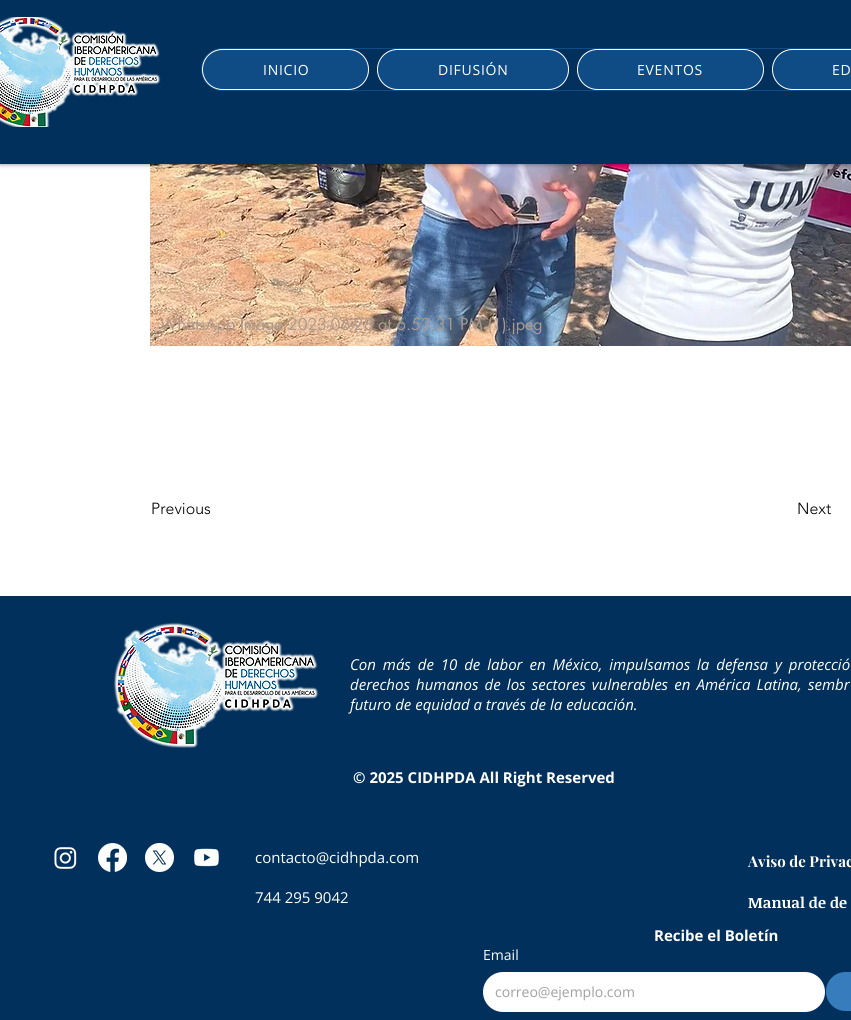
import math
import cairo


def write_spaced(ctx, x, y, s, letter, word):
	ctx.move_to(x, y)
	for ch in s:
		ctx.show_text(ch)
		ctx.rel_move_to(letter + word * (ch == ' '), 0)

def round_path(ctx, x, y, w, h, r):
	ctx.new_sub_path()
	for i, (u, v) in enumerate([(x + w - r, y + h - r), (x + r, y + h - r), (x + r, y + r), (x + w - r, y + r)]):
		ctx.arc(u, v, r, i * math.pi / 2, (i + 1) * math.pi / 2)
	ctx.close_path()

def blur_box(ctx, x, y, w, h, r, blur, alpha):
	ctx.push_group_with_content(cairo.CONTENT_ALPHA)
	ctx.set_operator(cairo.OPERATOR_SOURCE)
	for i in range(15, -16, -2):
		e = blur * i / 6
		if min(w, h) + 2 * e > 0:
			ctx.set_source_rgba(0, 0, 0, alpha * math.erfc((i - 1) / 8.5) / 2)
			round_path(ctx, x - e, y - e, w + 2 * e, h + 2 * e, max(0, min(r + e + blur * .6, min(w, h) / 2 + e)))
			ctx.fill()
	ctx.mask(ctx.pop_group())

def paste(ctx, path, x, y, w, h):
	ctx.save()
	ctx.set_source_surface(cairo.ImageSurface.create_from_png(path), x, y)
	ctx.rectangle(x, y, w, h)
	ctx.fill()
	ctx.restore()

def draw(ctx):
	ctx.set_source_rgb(1, 1, 1)
	ctx.paint()
	paste(ctx, 'media/2.png', 150, 164, 701, 182)
	ctx.set_source_rgb(0, 0, 0)
	blur_box(ctx, 0, 0, 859, 164, 0, 2.5, 0.5)
	ctx.set_source_rgb(0, 0.188, 0.357)
	ctx.rectangle(0, 0, 851, 164)
	ctx.fill()
	paste(ctx, 'media/1.png', 0, 17, 161, 110)
	round_path(ctx, 201.5, 48.5, 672, 42, 21)
	ctx.set_source_rgb(0.059, 0.298, 0.522)
	ctx.set_line_width(1)
	ctx.stroke()
	round_path(ctx, 202.5, 49.5, 166, 40, 20)
	ctx.fill_preserve()
	ctx.set_source_rgb(1, 1, 1)
	ctx.stroke()
	ctx.select_font_face('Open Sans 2')
	ctx.set_font_size(14)
	write_spaced(ctx, 263, 75, 'INICIO', 0.75, 0)
	ctx.set_source_rgb(0.059, 0.298, 0.522)
	round_path(ctx, 377.5, 49.5, 191, 40, 20)
	ctx.fill_preserve()
	ctx.set_source_rgb(1, 1, 1)
	ctx.stroke()
	write_spaced(ctx, 438, 75, 'DIFUSIÓN', 0.75, 0)
	ctx.set_source_rgb(0.059, 0.298, 0.522)
	round_path(ctx, 577.5, 49.5, 186, 40, 20)
	ctx.fill_preserve()
	ctx.set_source_rgb(1, 1, 1)
	ctx.stroke()
	write_spaced(ctx, 637, 75, 'EVENTOS', 0.75, 0)
	ctx.set_source_rgb(0.059, 0.298, 0.522)
	round_path(ctx, 772.5, 49.5, 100, 40, 20)
	ctx.fill_preserve()
	ctx.set_source_rgb(1, 1, 1)
	ctx.stroke()
	write_spaced(ctx, 832, 75, 'ED', 0.75, 0)
	ctx.select_font_face('futura')
	ctx.set_font_size(16)
	ctx.set_source_rgb(0.671, 0.604, 0.557)
	ctx.move_to(160, 330)
	ctx.show_text('WhatsApp Image 2023-06-28 at 6.53.31 PM (1).jpeg')
	ctx.select_font_face('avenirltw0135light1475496 Light')
	ctx.set_source_rgb(0, 0, 0)
	ctx.move_to(151, 514)
	ctx.show_text('Previous')
	ctx.move_to(797, 514)
	ctx.show_text('Next')
	ctx.set_source_rgb(0, 0.188, 0.357)
	ctx.rectangle(0, 596, 851, 424)
	ctx.fill()
	paste(ctx, 'media/3.png', 113, 622, 206, 126)
	ctx.select_font_face('Open Sans', cairo.FONT_SLANT_ITALIC)
	ctx.set_font_size(15)
	ctx.set_source_rgb(1, 1, 1)
	write_spaced(ctx, 350, 670, 'Con más de 10 de labor en México, impulsamos la defensa y protecció', 0, 3)
	write_spaced(ctx, 350, 690, 'derechos humanos de los sectores vulnerables en América Latina, sembr', 0, 2.25)
	ctx.move_to(350, 710)
	ctx.show_text('futuro de equidad a través de la educación.')
	ctx.select_font_face('Open Sans', cairo.FONT_SLANT_NORMAL, cairo.FONT_WEIGHT_BOLD)
	ctx.move_to(353, 783)
	ctx.show_text('© 2025 CIDHPDA All Right Reserved')
	paste(ctx, 'media/4.png', 54, 847, 23, 22)
	paste(ctx, 'media/5.png', 98, 843, 29, 29)
	paste(ctx, 'media/6.png', 145, 843, 29, 29)
	paste(ctx, 'media/7.png', 194, 848, 25, 19)
	ctx.select_font_face('Open Sans')
	ctx.move_to(255, 863)
	ctx.show_text('contacto@cidhpda.com')
	ctx.move_to(255, 903)
	ctx.show_text('744 295 9042')
	ctx.select_font_face('Playfair Display', cairo.FONT_SLANT_NORMAL, cairo.FONT_WEIGHT_BOLD)
	ctx.move_to(748, 867)
	ctx.show_text('Aviso de Privac')
	ctx.select_font_face('Noticia Text', cairo.FONT_SLANT_NORMAL, cairo.FONT_WEIGHT_BOLD)
	ctx.move_to(748, 908)
	ctx.show_text('Manual de de')
	ctx.select_font_face('Open Sans', cairo.FONT_SLANT_NORMAL, cairo.FONT_WEIGHT_BOLD)
	ctx.move_to(654, 941)
	ctx.show_text('Recibe el Boletín')
	ctx.select_font_face('Open Sans 2')
	ctx.set_font_size(14)
	ctx.move_to(483, 960)
	ctx.show_text('Email')
	round_path(ctx, 483, 972, 342, 40, 20)
	ctx.fill()
	ctx.select_font_face('Open Sans')
	ctx.set_source_rgb(0.627, 0.627, 0.627)
	ctx.move_to(495, 997)
	ctx.show_text('correo@ejemplo.com')
	ctx.set_source_rgb(0.216, 0.49, 0.741)
	round_path(ctx, 826, 972, 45, 39, 19.5)
	ctx.fill()


surface = cairo.ImageSurface(cairo.FORMAT_RGB24, 851, 1020)
ctx = cairo.Context(surface)
options = cairo.FontOptions()
options.set_hint_metrics(cairo.HINT_METRICS_OFF)
options.set_hint_style(cairo.HINT_STYLE_NONE)
ctx.set_font_options(options)
ctx.set_miter_limit(4)
draw(ctx)
surface.write_to_png('image.png')
